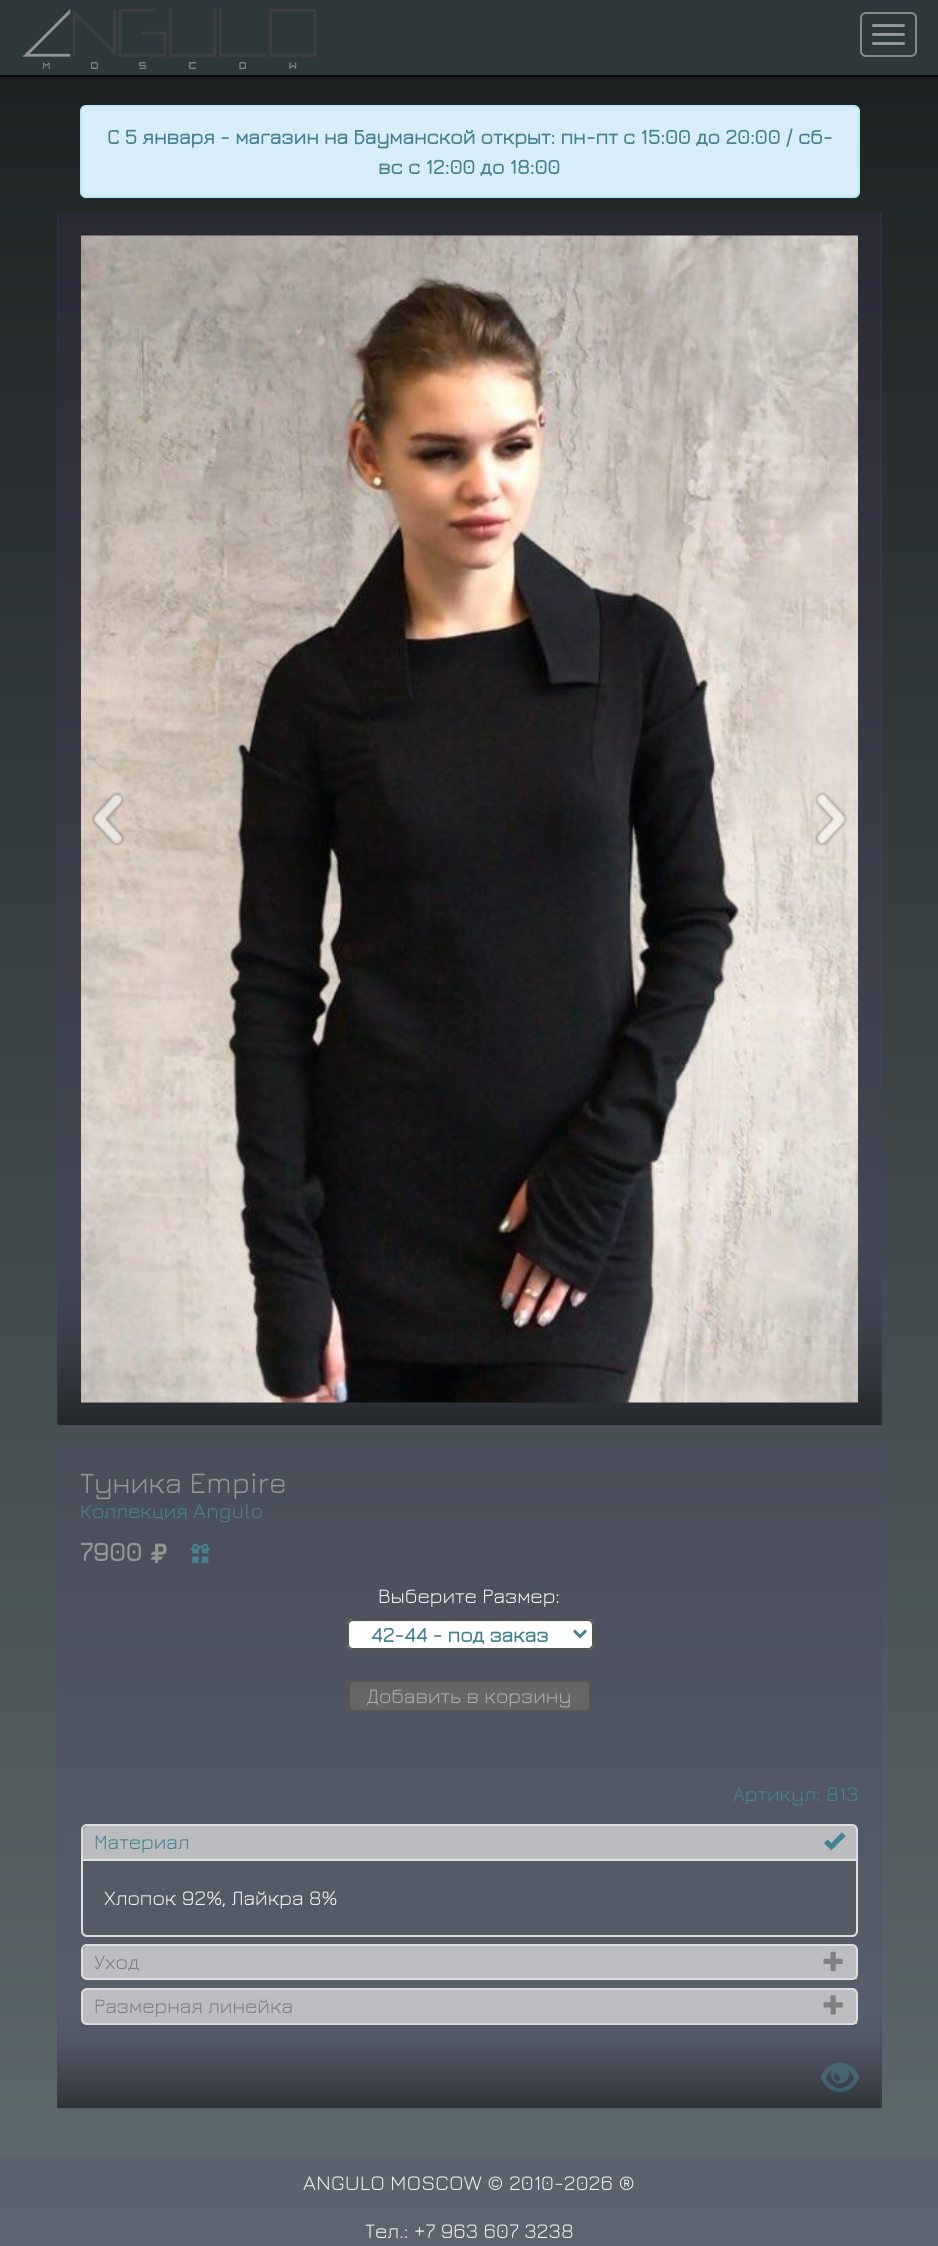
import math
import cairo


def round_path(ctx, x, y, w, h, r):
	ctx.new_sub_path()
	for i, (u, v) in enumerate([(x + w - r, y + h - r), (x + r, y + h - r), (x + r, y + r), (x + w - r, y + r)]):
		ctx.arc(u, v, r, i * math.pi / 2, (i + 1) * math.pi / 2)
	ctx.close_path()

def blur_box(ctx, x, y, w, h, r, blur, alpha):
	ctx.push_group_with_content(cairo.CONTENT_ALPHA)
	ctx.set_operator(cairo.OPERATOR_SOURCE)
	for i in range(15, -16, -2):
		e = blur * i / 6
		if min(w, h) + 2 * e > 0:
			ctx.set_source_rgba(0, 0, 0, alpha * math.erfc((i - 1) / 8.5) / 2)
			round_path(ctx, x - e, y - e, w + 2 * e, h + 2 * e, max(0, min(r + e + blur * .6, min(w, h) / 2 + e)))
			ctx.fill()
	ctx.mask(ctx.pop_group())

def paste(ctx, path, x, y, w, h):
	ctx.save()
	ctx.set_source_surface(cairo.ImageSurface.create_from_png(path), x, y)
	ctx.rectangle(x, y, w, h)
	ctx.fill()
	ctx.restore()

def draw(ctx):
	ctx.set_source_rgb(1, 1, 1)
	ctx.paint()
	gradient = cairo.LinearGradient(470, 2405, 470, 0)
	gradient.add_color_stop_rgba(0, 0.388, 0.443, 0.455, 1)
	gradient.add_color_stop_rgba(1, 0.11, 0.125, 0.129, 1)
	ctx.set_source(gradient)
	ctx.rectangle(0, 77, 938, 2079)
	ctx.fill()
	gradient = cairo.LinearGradient(470, 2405, 470, 0)
	gradient.add_color_stop_rgba(0, 0.38, 0.412, 0.459, 1)
	gradient.add_color_stop_rgba(1, 0.145, 0.141, 0.184, 1)
	ctx.set_source(gradient)
	ctx.rectangle(0, 2156, 938, 90)
	ctx.fill()
	ctx.set_source_rgb(0, 0, 0)
	blur_box(ctx, 0, 3, 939, 77, 0, 1.5, 0.2)
	ctx.set_source_rgb(0.176, 0.22, 0.231)
	ctx.rectangle(0, 0, 938, 75)
	ctx.fill()
	ctx.set_source_rgb(0.031, 0.031, 0.031)
	ctx.rectangle(0, 75, 938, 2)
	ctx.fill()
	paste(ctx, 'media/1.png', 22, 9, 295, 60)
	round_path(ctx, 861, 13, 55, 43, 5)
	ctx.set_source_rgb(0.533, 0.533, 0.533)
	ctx.stroke()
	ctx.set_source_rgb(0.576, 0.584, 0.596)
	round_path(ctx, 872, 24, 33, 3, 1.5)
	ctx.fill()
	round_path(ctx, 872, 33, 33, 3, 1.5)
	ctx.fill()
	round_path(ctx, 872, 42, 33, 3, 1.5)
	ctx.fill()
	ctx.set_source_rgb(0.851, 0.929, 0.969)
	round_path(ctx, 81, 106, 778, 91, 5)
	ctx.fill_preserve()
	ctx.set_source_rgb(0.737, 0.91, 0.945)
	ctx.stroke()
	ctx.select_font_face('Jura', cairo.FONT_SLANT_NORMAL, cairo.FONT_WEIGHT_BOLD)
	ctx.set_font_size(21)
	ctx.set_source_rgb(0.278, 0.514, 0.557)
	ctx.move_to(107, 144)
	ctx.show_text('С 5 января - магазин на Бауманской открыт: пн-пт с 15:00 до 20:00 / сб-')
	ctx.move_to(378, 174)
	ctx.show_text('вс с 12:00 до 18:00')
	gradient = cairo.LinearGradient(469, 213, 470, 1425)
	gradient.add_color_stop_rgba(0, 0.337, 0.239, 0.486, 0.15)
	gradient.add_color_stop_rgba(0.85, 0.337, 0.239, 0.486, 0.15)
	gradient.add_color_stop_rgba(1, 0, 0, 0, 0.5)
	ctx.set_source(gradient)
	ctx.rectangle(57, 213, 825, 1212)
	ctx.fill()
	gradient = cairo.LinearGradient(469, 1425, 470, 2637)
	gradient.add_color_stop_rgba(0, 0.282, 0.302, 0.345, 1)
	gradient.add_color_stop_rgba(0.85, 0.282, 0.302, 0.345, 1)
	gradient.add_color_stop_rgba(1, 0.137, 0.157, 0.161, 1)
	ctx.set_source(gradient)
	ctx.rectangle(57, 1425, 825, 2)
	ctx.fill()
	ctx.set_source_rgba(0.337, 0.239, 0.486, 0.2)
	ctx.new_path()
	ctx.move_to(882, 213)
	ctx.line_to(882, 1426)
	ctx.line_to(880, 1425)
	ctx.line_to(880, 213)
	ctx.close_path()
	ctx.fill()
	ctx.set_source_rgb(0.294, 0.29, 0.373)
	ctx.new_path()
	ctx.move_to(882, 1426)
	ctx.line_to(57, 1426)
	ctx.line_to(58, 1425)
	ctx.line_to(880, 1425)
	ctx.close_path()
	ctx.fill()
	ctx.set_source_rgba(0.337, 0.239, 0.486, 0.2)
	ctx.new_path()
	ctx.move_to(57, 1426)
	ctx.line_to(57, 213)
	ctx.line_to(58, 213)
	ctx.line_to(58, 1425)
	ctx.close_path()
	ctx.fill()
	paste(ctx, 'media/2.png', 81, 235, 777, 1168)
	paste(ctx, 'media/3.png', 91, 792, 34, 54)
	paste(ctx, 'media/4.png', 814, 792, 34, 54)
	gradient = cairo.LinearGradient(470, 1443, 470, 2108)
	gradient.add_color_stop_rgba(0, 0.337, 0.239, 0.486, 0.15)
	gradient.add_color_stop_rgba(0.85, 0.337, 0.239, 0.486, 0.15)
	gradient.add_color_stop_rgba(1, 0, 0, 0, 0.5)
	ctx.set_source(gradient)
	ctx.rectangle(57, 1443, 825, 665)
	ctx.fill()
	gradient = cairo.LinearGradient(470, 2108, 470, 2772)
	gradient.add_color_stop_rgba(0, 0.349, 0.38, 0.427, 1)
	gradient.add_color_stop_rgba(0.85, 0.349, 0.38, 0.427, 1)
	gradient.add_color_stop_rgba(1, 0.176, 0.204, 0.208, 1)
	ctx.set_source(gradient)
	ctx.rectangle(57, 2108, 825, 1)
	ctx.fill()
	ctx.set_source_rgba(0.337, 0.239, 0.486, 0.2)
	ctx.new_path()
	ctx.move_to(882, 1443)
	ctx.line_to(882, 2109)
	ctx.line_to(880, 2108)
	ctx.line_to(880, 1443)
	ctx.close_path()
	ctx.fill()
	ctx.set_source_rgb(0.345, 0.353, 0.439)
	ctx.new_path()
	ctx.move_to(882, 2109)
	ctx.line_to(57, 2109)
	ctx.line_to(58, 2108)
	ctx.line_to(880, 2108)
	ctx.close_path()
	ctx.fill()
	ctx.set_source_rgba(0.337, 0.239, 0.486, 0.2)
	ctx.new_path()
	ctx.move_to(57, 2109)
	ctx.line_to(57, 1443)
	ctx.line_to(58, 1443)
	ctx.line_to(58, 2108)
	ctx.close_path()
	ctx.fill()
	ctx.select_font_face('Jura Light')
	ctx.set_font_size(30)
	ctx.set_source_rgb(0.576, 0.584, 0.596)
	ctx.move_to(80, 1493)
	ctx.show_text('Туника Empire')
	ctx.set_font_size(21)
	ctx.set_source_rgb(0.278, 0.514, 0.557)
	ctx.move_to(80, 1518)
	ctx.show_text('Коллекция Angulo')
	ctx.select_font_face('Jura', cairo.FONT_SLANT_NORMAL, cairo.FONT_WEIGHT_BOLD)
	ctx.set_font_size(27)
	ctx.set_source_rgb(0.576, 0.584, 0.596)
	ctx.move_to(80, 1561)
	ctx.show_text('7900')
	paste(ctx, 'media/5.png', 150, 1543, 17, 20)
	paste(ctx, 'media/6.png', 190, 1543, 20, 20)
	ctx.select_font_face('Jura Light')
	ctx.set_font_size(21)
	ctx.set_source_rgb(0.937, 0.937, 0.937)
	ctx.move_to(378, 1603)
	ctx.show_text('Выберите Размер:')
	ctx.set_source_rgb(1, 1, 1)
	round_path(ctx, 347, 1619, 247, 31, 6)
	ctx.fill()
	ctx.set_source_rgb(0.925, 0.925, 0.925)
	ctx.new_path()
	ctx.move_to(352, 1622)
	ctx.line_to(588, 1622)
	ctx.curve_to(593, 1622, 592, 1630, 592, 1633)
	ctx.line_to(592, 1647)
	ctx.curve_to(593, 1646, 593, 1645, 593, 1644)
	ctx.line_to(593, 1625)
	ctx.curve_to(593, 1622, 591, 1620, 588, 1620)
	ctx.line_to(353, 1620)
	ctx.curve_to(350, 1620, 348, 1622, 348, 1625)
	ctx.line_to(348, 1626)
	ctx.curve_to(348, 1624, 350, 1622, 352, 1622)
	ctx.close_path()
	ctx.fill()
	round_path(ctx, 348, 1620, 245, 29, 5)
	ctx.set_source_rgb(0.333, 0.333, 0.333)
	ctx.stroke()
	ctx.new_path()
	ctx.move_to(574, 1630.5)
	ctx.line_to(580, 1636.5)
	ctx.line_to(586, 1630.5)
	ctx.set_source_rgb(0.278, 0.514, 0.557)
	ctx.set_line_width(3)
	ctx.stroke()
	ctx.select_font_face('Jura', cairo.FONT_SLANT_NORMAL, cairo.FONT_WEIGHT_BOLD)
	ctx.move_to(371, 1642)
	ctx.show_text('42-44 - под заказ')
	ctx.set_source_rgb(0.4, 0.4, 0.4)
	round_path(ctx, 349, 1681, 241, 30, 5)
	ctx.fill_preserve()
	ctx.set_source_rgb(0.333, 0.333, 0.333)
	ctx.set_line_width(2)
	ctx.stroke()
	ctx.select_font_face('Jura Light')
	ctx.set_source_rgb(0.667, 0.667, 0.667)
	ctx.move_to(367, 1703)
	ctx.show_text('Добавить в корзину')
	ctx.set_source_rgb(0.278, 0.514, 0.557)
	ctx.move_to(733, 1801)
	ctx.show_text('Артикул: 813')
	round_path(ctx, 82, 1825, 775, 111, 5)
	ctx.set_source_rgb(0.867, 0.867, 0.867)
	ctx.stroke()
	ctx.set_source_rgba(0.867, 0.867, 0.867, 0.75)
	ctx.new_path()
	ctx.move_to(88, 1826)
	ctx.line_to(852, 1826)
	ctx.curve_to(855, 1826, 857, 1828, 857, 1831)
	ctx.line_to(857, 1859)
	ctx.line_to(83, 1859)
	ctx.line_to(83, 1831)
	ctx.curve_to(83, 1828, 85, 1826, 88, 1826)
	ctx.close_path()
	ctx.fill()
	ctx.set_source_rgb(0.278, 0.514, 0.557)
	ctx.move_to(94, 1849)
	ctx.show_text('Материал')
	paste(ctx, 'media/7.png', 824, 1832, 22, 19)
	ctx.set_source_rgb(0.867, 0.867, 0.867)
	ctx.rectangle(83, 1859, 774, 2)
	ctx.fill()
	ctx.set_source_rgb(0.937, 0.937, 0.937)
	ctx.move_to(104, 1905)
	ctx.show_text('Хлопок 92%, Лайкра 8%')
	round_path(ctx, 82, 1945, 775, 34, 5)
	ctx.set_source_rgb(0.867, 0.867, 0.867)
	ctx.stroke()
	ctx.set_source_rgba(0.867, 0.867, 0.867, 0.75)
	ctx.new_path()
	ctx.move_to(88, 1946)
	ctx.line_to(852, 1946)
	ctx.curve_to(855, 1946, 857, 1948, 857, 1951)
	ctx.line_to(857, 1979)
	ctx.line_to(83, 1979)
	ctx.line_to(83, 1951)
	ctx.curve_to(83, 1948, 85, 1946, 88, 1946)
	ctx.close_path()
	ctx.fill()
	ctx.set_source_rgb(0.502, 0.502, 0.502)
	ctx.move_to(94, 1969)
	ctx.show_text('Уход')
	paste(ctx, 'media/8.png', 823, 1951, 20, 20)
	round_path(ctx, 82, 1989, 775, 35, 5)
	ctx.set_source_rgb(0.867, 0.867, 0.867)
	ctx.stroke()
	ctx.set_source_rgba(0.867, 0.867, 0.867, 0.75)
	ctx.new_path()
	ctx.move_to(88, 1989)
	ctx.line_to(852, 1989)
	ctx.curve_to(855, 1989, 857, 1991, 857, 1994)
	ctx.line_to(857, 2024)
	ctx.line_to(83, 2024)
	ctx.line_to(83, 1994)
	ctx.curve_to(83, 1991, 85, 1989, 88, 1989)
	ctx.close_path()
	ctx.fill()
	ctx.set_source_rgb(0.502, 0.502, 0.502)
	ctx.move_to(94, 2013)
	ctx.show_text('Размерная линейка')
	paste(ctx, 'media/9.png', 823, 1995, 20, 20)
	paste(ctx, 'media/10.png', 821, 2062, 38, 31)
	ctx.set_source_rgb(0.937, 0.937, 0.937)
	ctx.move_to(303, 2190)
	ctx.show_text('ANGULO MOSCOW © 2010-2026 ®')
	ctx.move_to(365, 2238)
	ctx.show_text('Тел.: +7 963 607 3238')


surface = cairo.ImageSurface(cairo.FORMAT_RGB24, 938, 2246)
ctx = cairo.Context(surface)
options = cairo.FontOptions()
options.set_hint_metrics(cairo.HINT_METRICS_OFF)
options.set_hint_style(cairo.HINT_STYLE_NONE)
ctx.set_font_options(options)
ctx.set_miter_limit(4)
draw(ctx)
surface.write_to_png('image.png')
